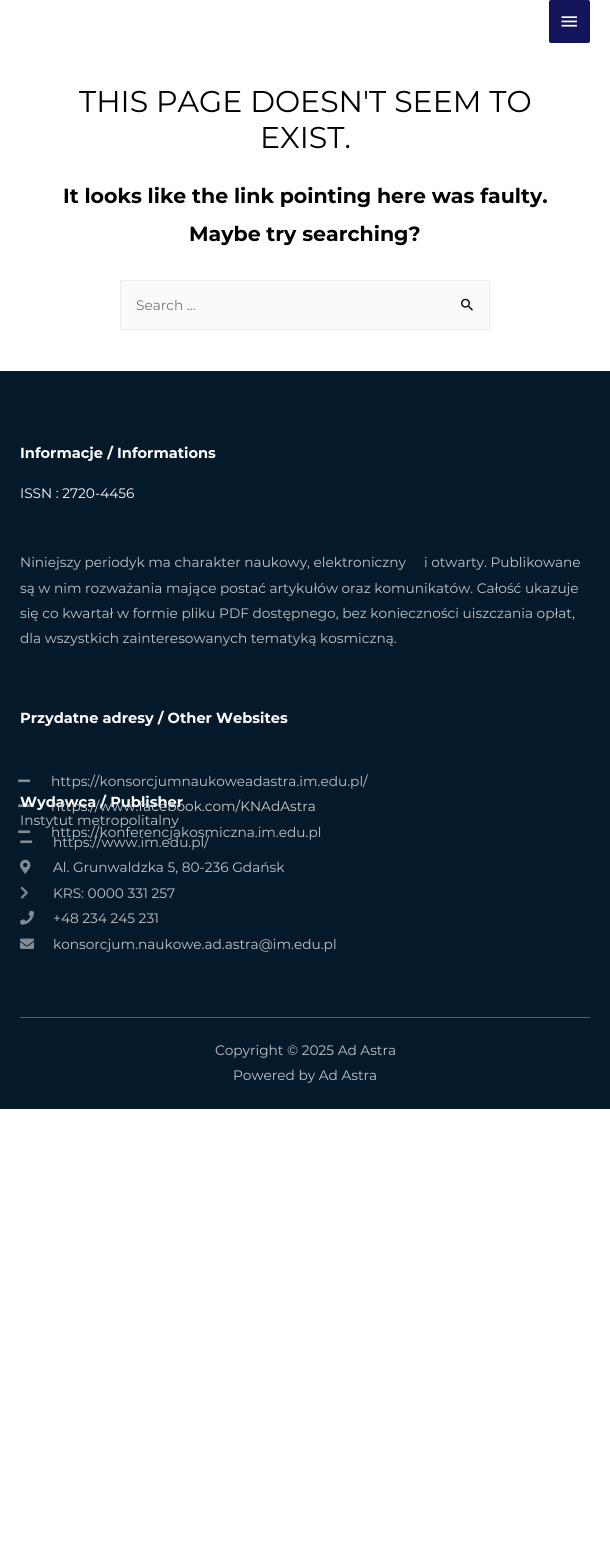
import math
import cairo


def round_path(ctx, x, y, w, h, r):
	ctx.new_sub_path()
	for i, (u, v) in enumerate([(x + w - r, y + h - r), (x + r, y + h - r), (x + r, y + r), (x + w - r, y + r)]):
		ctx.arc(u, v, r, i * math.pi / 2, (i + 1) * math.pi / 2)
	ctx.close_path()

def paste(ctx, path, x, y, w, h):
	ctx.save()
	ctx.set_source_surface(cairo.ImageSurface.create_from_png(path), x, y)
	ctx.rectangle(x, y, w, h)
	ctx.fill()
	ctx.restore()

def draw(ctx):
	ctx.set_source_rgb(1, 1, 1)
	ctx.paint()
	ctx.set_source_rgb(0.078, 0.082, 0.353)
	round_path(ctx, 549, 0, 41, 43, 2)
	ctx.fill()
	paste(ctx, 'media/1.png', 561, 16, 16, 11)
	ctx.select_font_face('Montserrat')
	ctx.set_font_size(30)
	ctx.set_source_rgb(0, 0, 0)
	ctx.move_to(79, 112)
	ctx.show_text('THIS PAGE DOESN\'T SEEM TO')
	ctx.move_to(260, 148)
	ctx.show_text('EXIST.')
	ctx.select_font_face('Montserrat', cairo.FONT_SLANT_NORMAL, cairo.FONT_WEIGHT_BOLD)
	ctx.set_font_size(20.5)
	ctx.move_to(63, 203)
	ctx.show_text('It looks like the link pointing here was faulty.')
	ctx.move_to(189, 241)
	ctx.show_text('Maybe try searching?')
	ctx.set_source_rgb(0.98, 0.98, 0.98)
	round_path(ctx, 120.5, 280.5, 369, 49, 1.5)
	ctx.fill_preserve()
	ctx.set_source_rgb(0.918, 0.918, 0.918)
	ctx.set_line_width(1)
	ctx.stroke()
	ctx.select_font_face('Montserrat')
	ctx.set_font_size(13.7)
	ctx.set_source_rgb(0.459, 0.459, 0.459)
	ctx.move_to(136, 310)
	ctx.show_text('Search …')
	paste(ctx, 'media/2.png', 461, 298, 12, 13)
	ctx.set_source_rgb(0.016, 0.098, 0.165)
	ctx.rectangle(0, 371, 610, 738)
	ctx.fill()
	ctx.select_font_face('Montserrat', cairo.FONT_SLANT_NORMAL, cairo.FONT_WEIGHT_BOLD)
	ctx.set_font_size(14.6)
	ctx.set_source_rgb(1, 1, 1)
	ctx.move_to(20, 458)
	ctx.show_text('Informacje / Informations')
	ctx.select_font_face('Montserrat')
	ctx.set_font_size(13.7)
	ctx.move_to(20, 498)
	ctx.show_text('ISSN : 2720-4456')
	ctx.set_source_rgb(0.753, 0.776, 0.792)
	for x, y, s in [
		(20, 567, 'Niniejszy periodyk ma charakter naukowy, elektroniczny     i otwarty. Publikowane'),
		(20, 593, 'są w nim rozważania mające postać artykułów oraz komunikatów. Całość ukazuje'),
		(20, 618, 'się co kwartał w formie pliku PDF dostępnego, bez konieczności uiszczania opłat,'),
		(20, 643, 'dla wszystkich zainteresowanych tematyką kosmiczną.'),
	]:
		ctx.move_to(x, y)
		ctx.show_text(s)
	ctx.select_font_face('Montserrat', cairo.FONT_SLANT_NORMAL, cairo.FONT_WEIGHT_BOLD)
	ctx.set_font_size(14.6)
	ctx.set_source_rgb(1, 1, 1)
	ctx.move_to(20, 723)
	ctx.show_text('Przydatne adresy / Other Websites')
	paste(ctx, 'media/3.png', 18, 779, 13, 4)
	ctx.select_font_face('Montserrat')
	ctx.set_font_size(13.7)
	ctx.set_source_rgb(0.753, 0.776, 0.792)
	ctx.move_to(51, 786)
	ctx.show_text('https://konsorcjumnaukoweadastra.im.edu.pl/')
	ctx.select_font_face('Montserrat', cairo.FONT_SLANT_NORMAL, cairo.FONT_WEIGHT_BOLD)
	ctx.set_font_size(14.6)
	ctx.set_source_rgb(1, 1, 1)
	ctx.move_to(20, 807)
	ctx.show_text('Wydawca / Publisher')
	paste(ctx, 'media/4.png', 18, 804, 13, 4)
	ctx.select_font_face('Montserrat')
	ctx.set_font_size(13.7)
	ctx.set_source_rgb(0.788, 0.804, 0.82)
	ctx.move_to(51, 811)
	ctx.show_text('https://www.facebook.com/KNAdAstra')
	paste(ctx, 'media/3.png', 18, 830, 13, 4)
	ctx.set_source_rgb(0.753, 0.776, 0.792)
	ctx.move_to(51, 837)
	ctx.show_text('https://konferencjakosmiczna.im.edu.pl')
	ctx.move_to(20, 825)
	ctx.show_text('Instytut metropolitalny')
	paste(ctx, 'media/3.png', 20, 840, 13, 4)
	ctx.move_to(53, 847)
	ctx.show_text('https://www.im.edu.pl/')
	paste(ctx, 'media/5.png', 20, 859, 11, 15)
	ctx.move_to(53, 872)
	ctx.show_text('Al. Grunwaldzka 5, 80-236 Gdańsk')
	paste(ctx, 'media/6.png', 20, 886, 8, 13)
	ctx.move_to(53, 898)
	ctx.show_text('KRS: 0000 331 257')
	paste(ctx, 'media/7.png', 20, 910, 14, 15)
	ctx.move_to(53, 923)
	ctx.show_text('+48 234 245 231')
	paste(ctx, 'media/8.png', 20, 938, 14, 11)
	ctx.move_to(53, 949)
	ctx.show_text('konsorcjum.naukowe.ad.astra@im.edu.pl')
	ctx.set_source_rgb(0.322, 0.376, 0.424)
	ctx.rectangle(20, 1017, 570, 1)
	ctx.fill()
	ctx.set_source_rgb(0.753, 0.776, 0.792)
	ctx.move_to(215, 1055)
	ctx.show_text('Copyright © 2025 Ad Astra')
	ctx.move_to(233, 1080)
	ctx.show_text('Powered by Ad Astra')


surface = cairo.ImageSurface(cairo.FORMAT_RGB24, 610, 1549)
ctx = cairo.Context(surface)
options = cairo.FontOptions()
options.set_hint_metrics(cairo.HINT_METRICS_OFF)
options.set_hint_style(cairo.HINT_STYLE_NONE)
ctx.set_font_options(options)
ctx.set_miter_limit(4)
draw(ctx)
surface.write_to_png('image.png')
